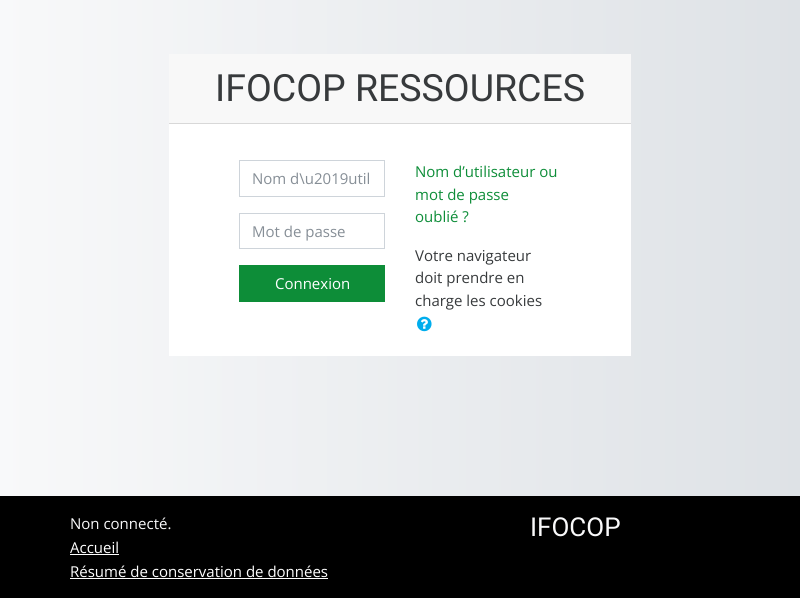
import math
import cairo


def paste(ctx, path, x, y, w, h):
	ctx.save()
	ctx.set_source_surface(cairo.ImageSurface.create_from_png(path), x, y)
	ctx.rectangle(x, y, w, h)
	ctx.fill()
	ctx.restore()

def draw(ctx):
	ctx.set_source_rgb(1, 1, 1)
	ctx.paint()
	gradient = cairo.LinearGradient(0, 248, 800, 248)
	gradient.add_color_stop_rgba(0, 0.973, 0.976, 0.98, 1)
	gradient.add_color_stop_rgba(1, 0.871, 0.886, 0.902, 1)
	ctx.set_source(gradient)
	ctx.rectangle(0, 0, 800, 496)
	ctx.fill()
	ctx.set_source_rgb(1, 1, 1)
	ctx.rectangle(169, 124, 462, 232)
	ctx.fill()
	ctx.set_source_rgb(0.969, 0.969, 0.969)
	ctx.rectangle(169, 54, 462, 69)
	ctx.fill()
	ctx.set_source_rgb(0.847, 0.847, 0.847)
	ctx.rectangle(169, 123, 462, 1)
	ctx.fill()
	ctx.select_font_face('Roboto')
	ctx.set_font_size(37.5)
	ctx.set_source_rgb(0.216, 0.227, 0.235)
	ctx.move_to(215, 101)
	ctx.show_text('IFOCOP RESSOURCES')
	ctx.rectangle(239.5, 160.5, 145, 36)
	ctx.set_source_rgb(0.808, 0.831, 0.855)
	ctx.set_line_width(1)
	ctx.stroke()
	ctx.select_font_face('Open Sans')
	ctx.set_font_size(15)
	ctx.set_source_rgb(0.525, 0.557, 0.588)
	ctx.move_to(252, 184)
	ctx.show_text('Nom d\\u2019util')
	ctx.rectangle(239.5, 213.5, 145, 35)
	ctx.set_source_rgb(0.808, 0.831, 0.855)
	ctx.stroke()
	ctx.set_source_rgb(0.525, 0.557, 0.588)
	ctx.move_to(252, 237)
	ctx.show_text('Mot de passe')
	ctx.set_source_rgb(0.051, 0.553, 0.22)
	ctx.rectangle(239, 265, 146, 37)
	ctx.fill()
	ctx.set_source_rgb(1, 1, 1)
	ctx.move_to(275, 289)
	ctx.show_text('Connexion')
	ctx.set_source_rgb(0.051, 0.553, 0.22)
	for x, y, s in [
		(415, 177, 'Nom d’utilisateur ou'),
		(415, 200, 'mot de passe'),
		(415, 222, 'oublié ?'),
	]:
		ctx.move_to(x, y)
		ctx.show_text(s)
	ctx.set_source_rgb(0.216, 0.227, 0.235)
	for x, y, s in [
		(415, 261, 'Votre navigateur'),
		(415, 283, 'doit prendre en'),
		(415, 306, 'charge les cookies'),
	]:
		ctx.move_to(x, y)
		ctx.show_text(s)
	paste(ctx, 'media/1.png', 417, 316, 15, 16)
	ctx.set_source_rgb(0, 0, 0)
	ctx.rectangle(0, 496, 800, 102)
	ctx.fill()
	ctx.set_source_rgb(0.973, 0.976, 0.98)
	ctx.move_to(70, 529)
	ctx.show_text('Non connecté.')
	ctx.set_source_rgb(1, 1, 1)
	ctx.move_to(70, 553)
	ctx.show_text('Accueil')
	ctx.rectangle(70, 554, 49, 1)
	ctx.fill()
	ctx.select_font_face('Roboto')
	ctx.set_font_size(26)
	ctx.set_source_rgb(0.973, 0.976, 0.98)
	ctx.move_to(530, 536)
	ctx.show_text('IFOCOP')
	ctx.select_font_face('Open Sans')
	ctx.set_font_size(15)
	ctx.set_source_rgb(1, 1, 1)
	ctx.move_to(70, 577)
	ctx.show_text('Résumé de conservation de données')
	ctx.rectangle(70, 578, 258, 1)
	ctx.fill()


surface = cairo.ImageSurface(cairo.FORMAT_RGB24, 800, 598)
ctx = cairo.Context(surface)
options = cairo.FontOptions()
options.set_hint_metrics(cairo.HINT_METRICS_OFF)
options.set_hint_style(cairo.HINT_STYLE_NONE)
ctx.set_font_options(options)
ctx.set_miter_limit(4)
draw(ctx)
surface.write_to_png('image.png')
